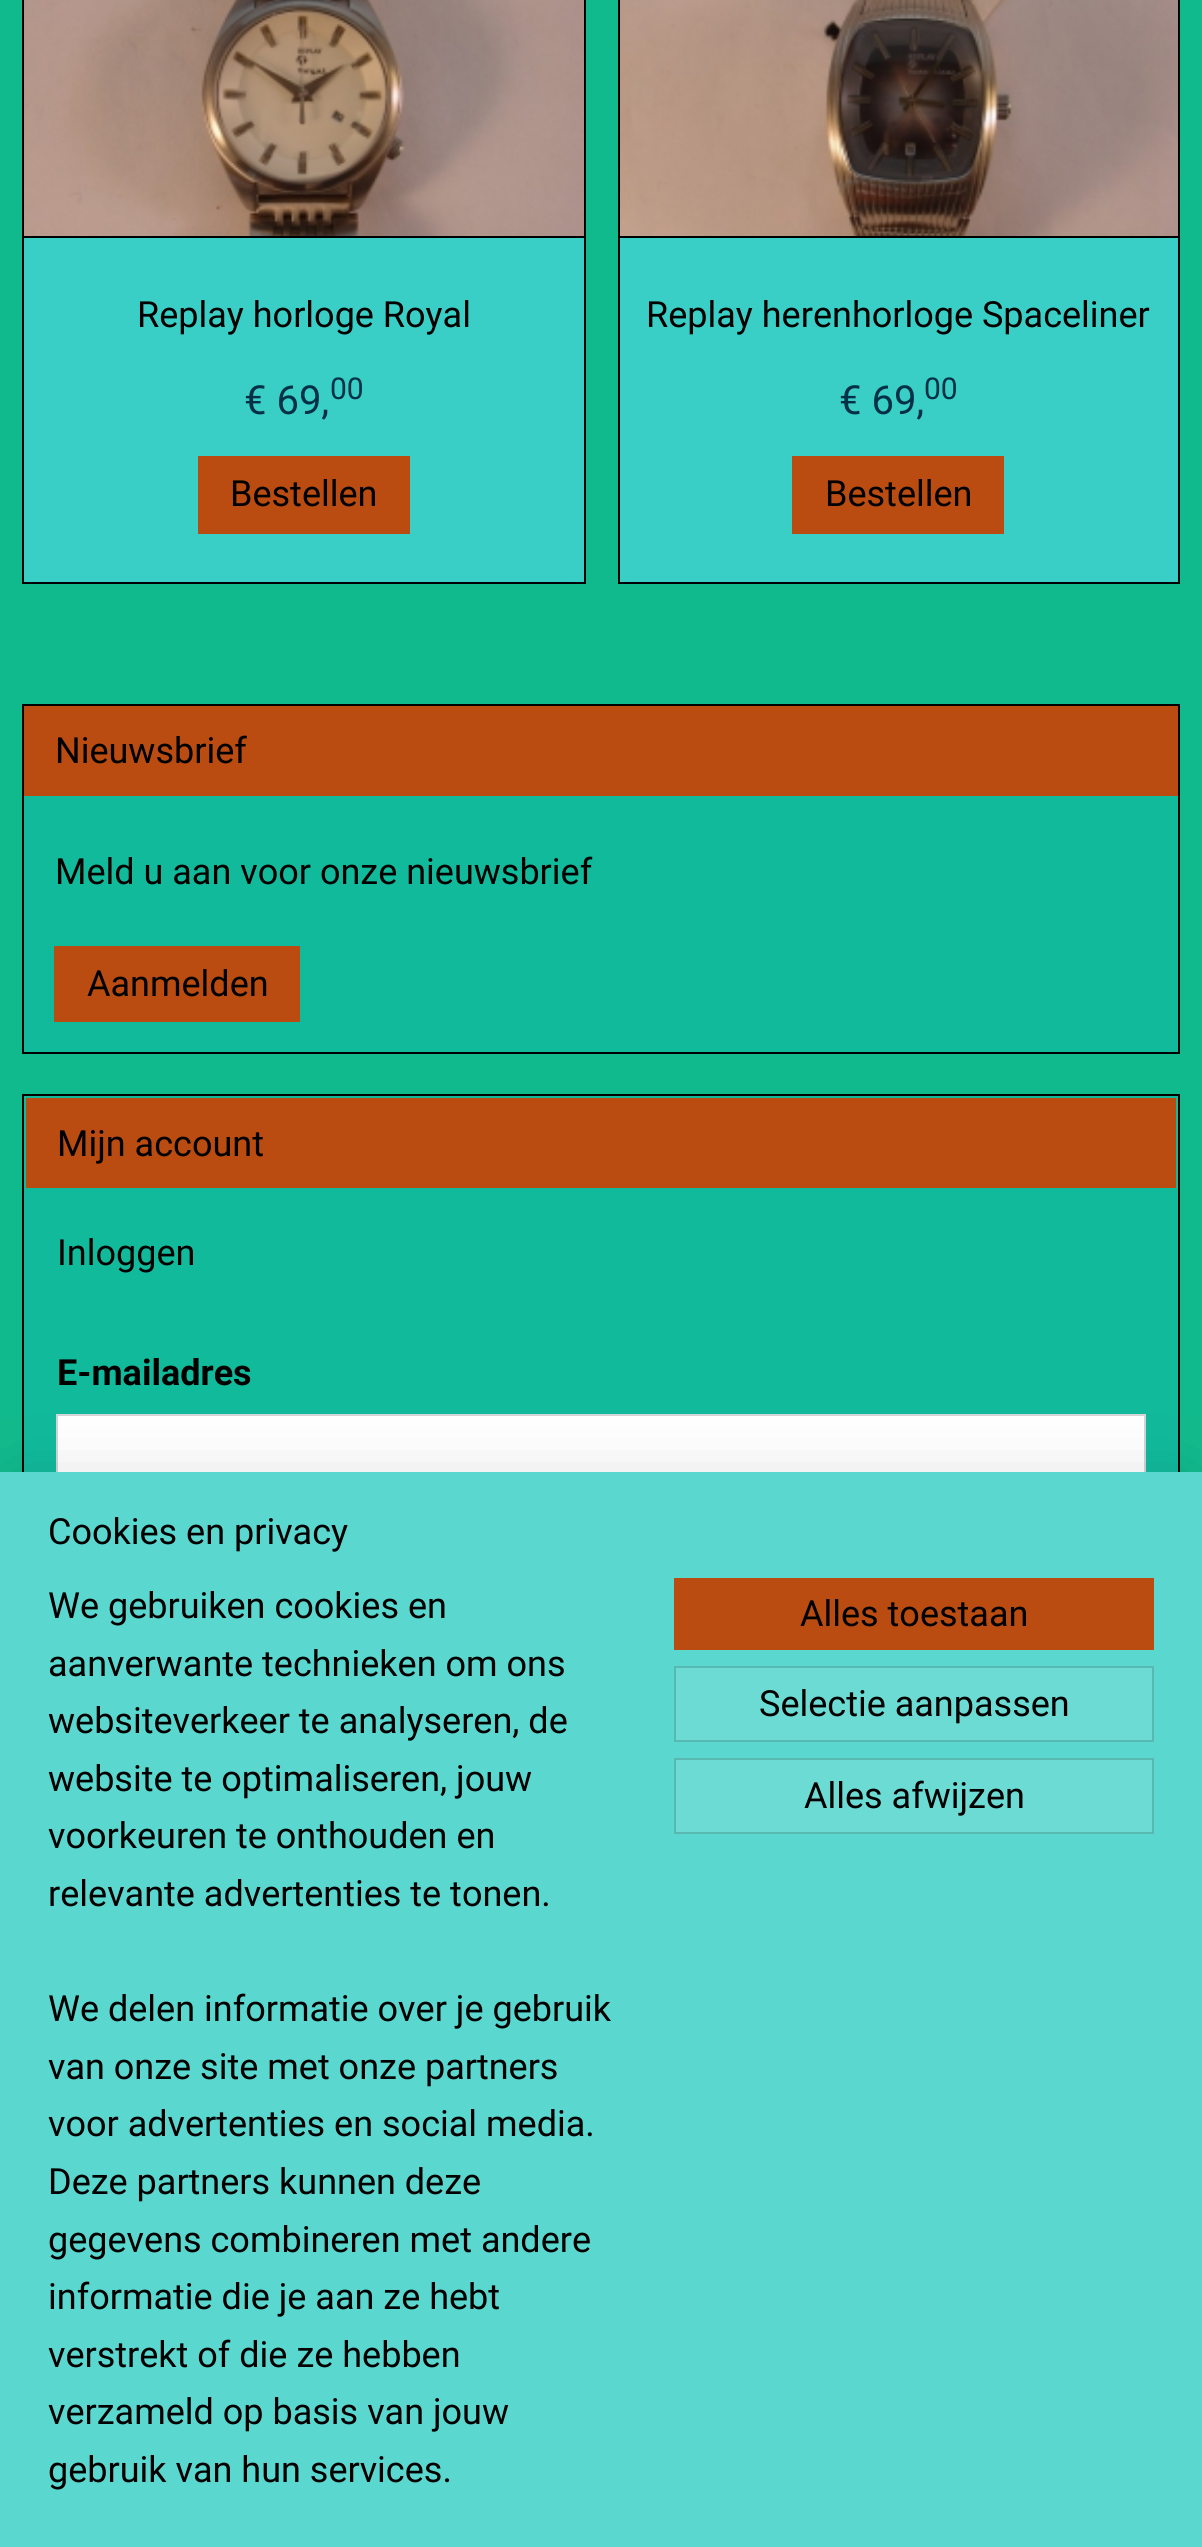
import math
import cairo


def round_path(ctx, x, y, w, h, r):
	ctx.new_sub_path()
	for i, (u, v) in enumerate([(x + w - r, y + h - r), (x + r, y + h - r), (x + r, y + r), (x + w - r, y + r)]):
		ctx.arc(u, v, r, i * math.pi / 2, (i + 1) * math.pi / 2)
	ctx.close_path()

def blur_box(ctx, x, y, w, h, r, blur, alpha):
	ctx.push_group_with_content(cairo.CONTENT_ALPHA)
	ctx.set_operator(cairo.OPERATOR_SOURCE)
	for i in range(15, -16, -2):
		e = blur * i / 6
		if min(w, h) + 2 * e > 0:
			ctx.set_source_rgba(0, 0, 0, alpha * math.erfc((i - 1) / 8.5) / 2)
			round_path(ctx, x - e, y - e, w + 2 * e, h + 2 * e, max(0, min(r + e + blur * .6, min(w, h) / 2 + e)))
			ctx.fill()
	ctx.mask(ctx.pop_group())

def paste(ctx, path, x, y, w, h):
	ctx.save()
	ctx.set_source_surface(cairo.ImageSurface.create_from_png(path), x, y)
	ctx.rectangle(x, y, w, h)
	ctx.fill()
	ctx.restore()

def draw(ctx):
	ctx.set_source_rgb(0.067, 0.729, 0.549)
	ctx.paint()
	ctx.set_source_rgb(0.227, 0.812, 0.776)
	ctx.rectangle(24, 238, 560, 344)
	ctx.fill()
	ctx.rectangle(23, -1, 562, 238)
	ctx.set_source_rgb(0, 0, 0)
	ctx.stroke()
	paste(ctx, 'media/1.png', 24, 0, 560, 236)
	ctx.rectangle(584, 238, 2, 346)
	ctx.rectangle(22, 582, 564, 2)
	ctx.rectangle(22, 238, 2, 346)
	ctx.fill()
	ctx.select_font_face('Roboto')
	ctx.set_font_size(36)
	ctx.move_to(137, 327)
	ctx.show_text('Replay horloge Royal')
	ctx.set_font_size(40)
	ctx.set_source_rgb(0.008, 0.188, 0.278)
	ctx.move_to(244, 414)
	ctx.show_text('€ 69,')
	ctx.set_font_size(30)
	ctx.move_to(330, 399)
	ctx.show_text('00')
	ctx.set_source_rgb(0.729, 0.294, 0.067)
	ctx.rectangle(198, 456, 212, 78)
	ctx.fill()
	ctx.set_font_size(36)
	ctx.set_source_rgb(0, 0, 0)
	ctx.move_to(230, 506)
	ctx.show_text('Bestellen')
	ctx.set_source_rgb(0.227, 0.812, 0.776)
	ctx.rectangle(620, 238, 558, 344)
	ctx.fill()
	ctx.rectangle(619, -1, 560, 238)
	ctx.set_source_rgb(0, 0, 0)
	ctx.stroke()
	paste(ctx, 'media/2.png', 620, 0, 558, 236)
	ctx.rectangle(1178, 238, 2, 346)
	ctx.rectangle(618, 582, 562, 2)
	ctx.rectangle(618, 238, 2, 346)
	ctx.fill()
	ctx.move_to(646, 327)
	ctx.show_text('Replay herenhorloge Spaceliner')
	ctx.set_font_size(40)
	ctx.set_source_rgb(0.008, 0.188, 0.278)
	ctx.move_to(839, 414)
	ctx.show_text('€ 69,')
	ctx.set_font_size(30)
	ctx.move_to(924, 399)
	ctx.show_text('00')
	ctx.set_source_rgb(0.729, 0.294, 0.067)
	ctx.rectangle(792, 456, 212, 78)
	ctx.fill()
	ctx.set_font_size(36)
	ctx.set_source_rgb(0, 0, 0)
	ctx.move_to(825, 506)
	ctx.show_text('Bestellen')
	ctx.set_source_rgb(0.067, 0.729, 0.608)
	ctx.rectangle(24, 796, 1154, 256)
	ctx.fill()
	ctx.rectangle(23, 705, 1156, 348)
	ctx.set_source_rgb(0, 0, 0)
	ctx.stroke()
	ctx.set_source_rgb(0.729, 0.294, 0.067)
	ctx.rectangle(24, 706, 1154, 90)
	ctx.fill()
	ctx.set_source_rgb(0, 0, 0)
	ctx.move_to(55, 763)
	ctx.show_text('Nieuwsbrief')
	ctx.move_to(55, 884)
	ctx.show_text('Meld u aan voor onze nieuwsbrief')
	ctx.set_source_rgb(0.729, 0.294, 0.067)
	ctx.rectangle(54, 946, 246, 76)
	ctx.fill()
	ctx.set_source_rgb(0, 0, 0)
	ctx.move_to(87, 996)
	ctx.show_text('Aanmelden')
	ctx.set_source_rgb(0.067, 0.729, 0.608)
	ctx.rectangle(24, 1096, 1154, 376)
	ctx.fill()
	ctx.rectangle(23, 1095, 1156, 1276)
	ctx.set_source_rgb(0, 0, 0)
	ctx.stroke()
	ctx.set_source_rgb(0.729, 0.294, 0.067)
	ctx.rectangle(26, 1098, 1150, 90)
	ctx.fill()
	ctx.set_source_rgb(0, 0, 0)
	ctx.move_to(57, 1156)
	ctx.show_text('Mijn account')
	ctx.move_to(57, 1265)
	ctx.show_text('Inloggen')
	ctx.select_font_face('Roboto', cairo.FONT_SLANT_NORMAL, cairo.FONT_WEIGHT_BOLD)
	ctx.move_to(57, 1385)
	ctx.show_text('E-mailadres')
	ctx.set_source_rgb(1, 1, 1)
	ctx.rectangle(58, 1416, 1086, 56)
	ctx.fill()
	ctx.rectangle(57, 1415, 1088, 80)
	ctx.set_source_rgb(0.827, 0.835, 0.851)
	ctx.stroke()
	ctx.set_source_rgb(0, 0, 0)
	blur_box(ctx, 20, 1492, 1162, 1036, 0, 36, 0.2)
	ctx.set_source_rgb(0.353, 0.843, 0.812)
	ctx.rectangle(0, 1472, 1202, 1075)
	ctx.fill()
	ctx.select_font_face('Roboto')
	ctx.set_source_rgb(0, 0, 0)
	for x, y, s in [
		(48, 1544, 'Cookies en privacy'),
		(48, 1618, 'We gebruiken cookies en'),
		(48, 1676, 'aanverwante technieken om ons'),
		(48, 1733, 'websiteverkeer te analyseren, de'),
		(48, 1791, 'website te optimaliseren, jouw'),
		(48, 1848, 'voorkeuren te onthouden en'),
		(48, 1906, 'relevante advertenties te tonen.'),
		(48, 2021, 'We delen informatie over je gebruik'),
		(48, 2079, 'van onze site met onze partners'),
		(48, 2136, 'voor advertenties en social media.'),
		(48, 2194, 'Deze partners kunnen deze'),
		(48, 2252, 'gegevens combineren met andere'),
		(48, 2309, 'informatie die je aan ze hebt'),
		(48, 2367, 'verstrekt of die ze hebben'),
		(48, 2424, 'verzameld op basis van jouw'),
		(48, 2482, 'gebruik van hun services.'),
	]:
		ctx.move_to(x, y)
		ctx.show_text(s)
	ctx.set_source_rgb(0.729, 0.294, 0.067)
	ctx.rectangle(674, 1578, 480, 72)
	ctx.fill()
	ctx.set_source_rgb(0, 0, 0)
	ctx.move_to(800, 1626)
	ctx.show_text('Alles toestaan')
	ctx.set_source_rgb(0.42, 0.859, 0.831)
	ctx.rectangle(675, 1667, 478, 74)
	ctx.fill_preserve()
	ctx.set_source_rgb(0.353, 0.722, 0.698)
	ctx.stroke()
	ctx.set_source_rgb(0, 0, 0)
	ctx.move_to(759, 1716)
	ctx.show_text('Selectie aanpassen')
	ctx.set_source_rgb(0.42, 0.859, 0.831)
	ctx.rectangle(675, 1759, 478, 74)
	ctx.fill_preserve()
	ctx.set_source_rgb(0.353, 0.722, 0.698)
	ctx.stroke()
	ctx.set_source_rgb(0, 0, 0)
	ctx.move_to(804, 1808)
	ctx.show_text('Alles afwijzen')


surface = cairo.ImageSurface(cairo.FORMAT_RGB24, 1202, 2547)
ctx = cairo.Context(surface)
options = cairo.FontOptions()
options.set_hint_metrics(cairo.HINT_METRICS_OFF)
options.set_hint_style(cairo.HINT_STYLE_NONE)
ctx.set_font_options(options)
ctx.set_miter_limit(4)
draw(ctx)
surface.write_to_png('image.png')
